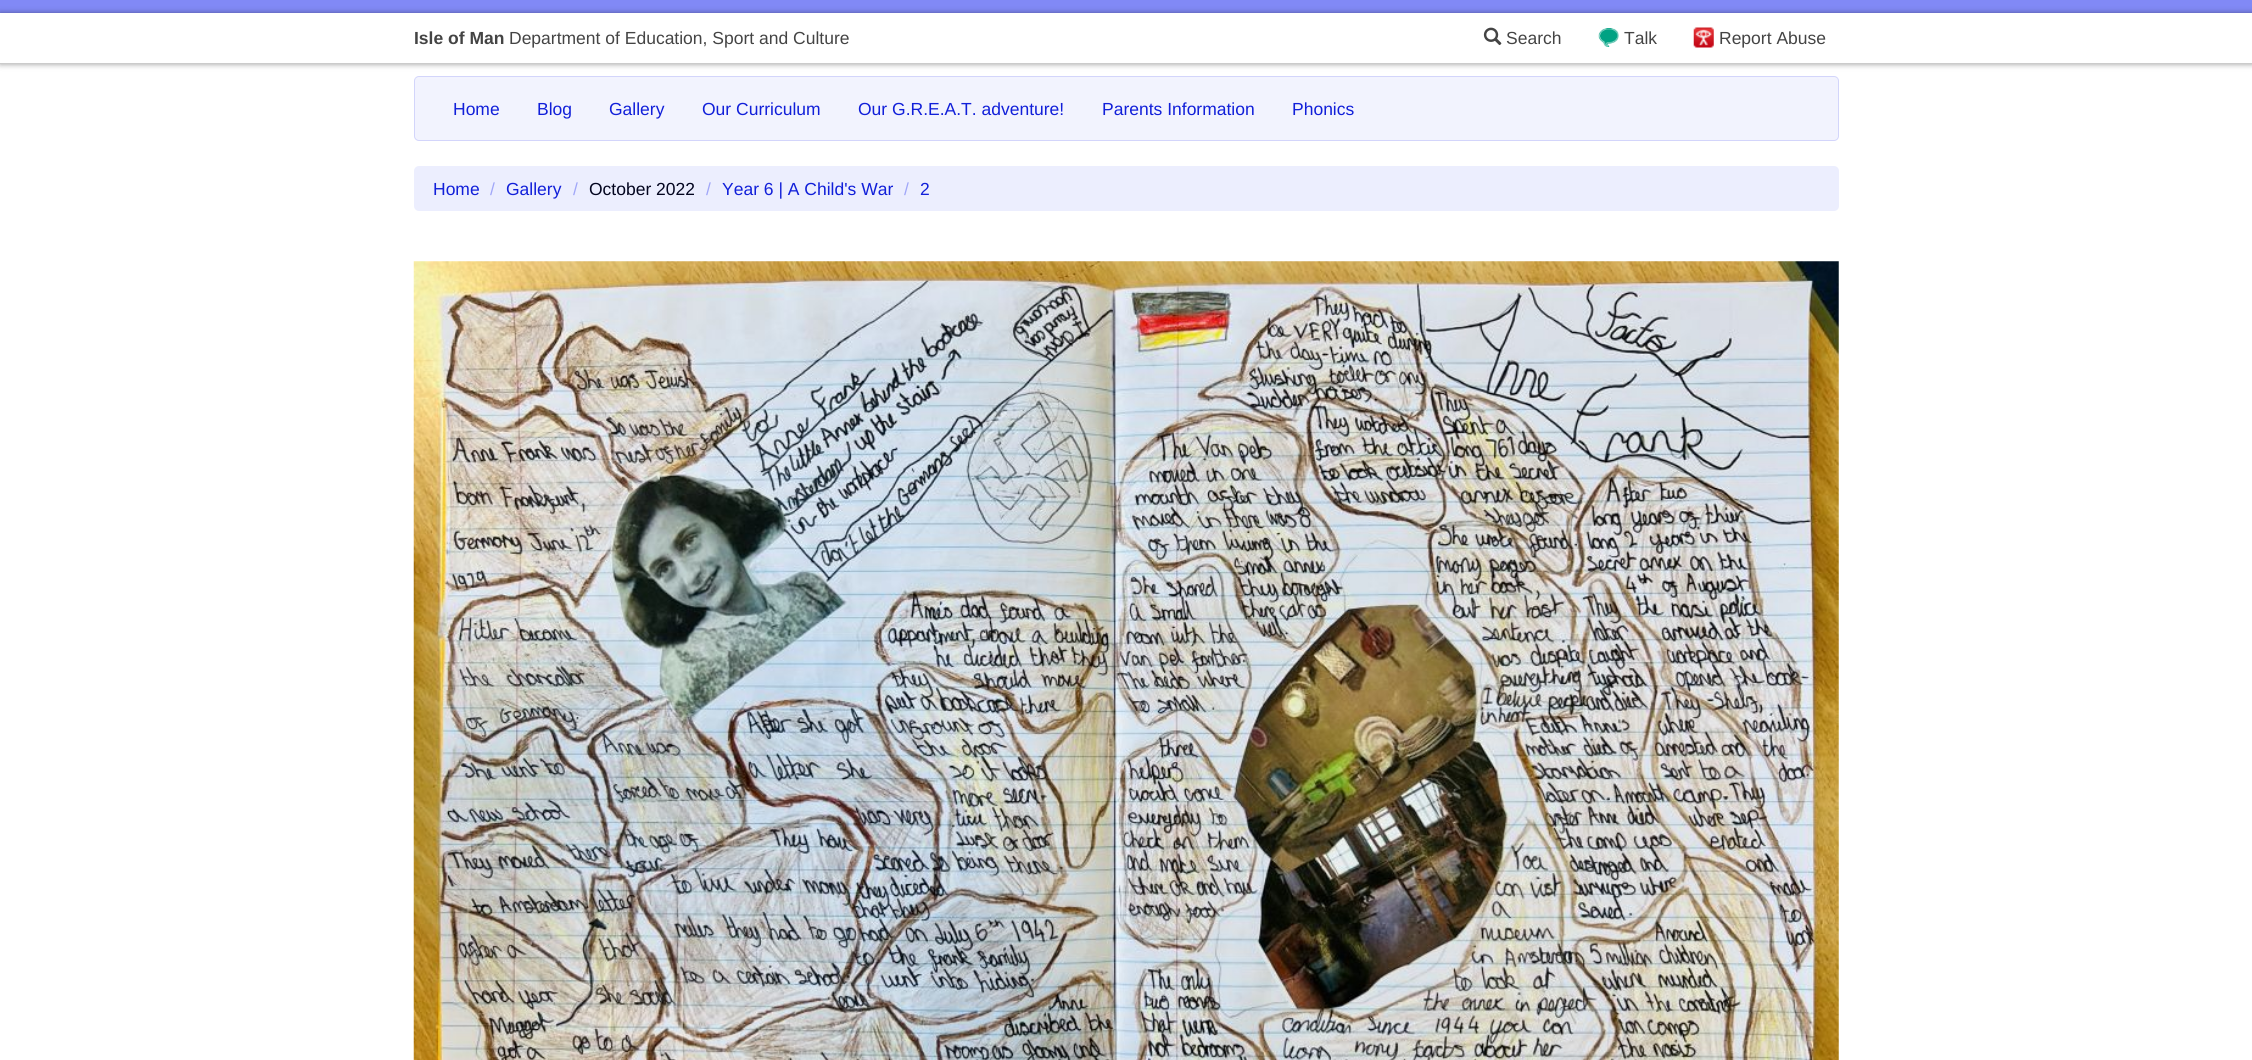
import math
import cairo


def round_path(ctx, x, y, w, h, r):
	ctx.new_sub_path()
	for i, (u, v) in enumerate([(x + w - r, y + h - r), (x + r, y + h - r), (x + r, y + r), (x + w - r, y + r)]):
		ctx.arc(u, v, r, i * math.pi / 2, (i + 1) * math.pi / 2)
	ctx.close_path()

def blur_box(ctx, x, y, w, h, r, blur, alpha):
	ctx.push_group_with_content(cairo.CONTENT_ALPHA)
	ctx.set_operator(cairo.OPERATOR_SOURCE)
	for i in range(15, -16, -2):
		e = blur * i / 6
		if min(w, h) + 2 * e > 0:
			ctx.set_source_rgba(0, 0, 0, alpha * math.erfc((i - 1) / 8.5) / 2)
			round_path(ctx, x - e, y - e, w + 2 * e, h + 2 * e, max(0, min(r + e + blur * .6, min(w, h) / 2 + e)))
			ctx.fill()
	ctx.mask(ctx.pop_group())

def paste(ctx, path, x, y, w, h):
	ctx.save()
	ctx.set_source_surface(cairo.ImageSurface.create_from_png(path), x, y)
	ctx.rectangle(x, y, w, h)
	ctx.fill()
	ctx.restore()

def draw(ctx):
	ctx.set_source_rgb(1, 1, 1)
	ctx.paint()
	ctx.set_source_rgb(0.506, 0.537, 0.961)
	ctx.rectangle(0, 0, 2252, 13)
	ctx.fill()
	ctx.save()
	ctx.set_fill_rule(cairo.FILL_RULE_EVEN_ODD)
	ctx.new_path()
	ctx.move_to(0, 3)
	ctx.line_to(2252, 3)
	ctx.line_to(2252, 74)
	ctx.line_to(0, 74)
	ctx.close_path()
	ctx.move_to(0, 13)
	ctx.line_to(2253, 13)
	ctx.line_to(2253, 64)
	ctx.line_to(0, 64)
	ctx.close_path()
	ctx.clip()
	ctx.set_source_rgb(0, 0, 0)
	blur_box(ctx, 0, 13, 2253, 51, 0, 3, 0.4)
	ctx.restore()
	ctx.set_source_rgb(0.796, 0.796, 0.796)
	ctx.rectangle(0, 63, 2252, 1)
	ctx.fill()
	ctx.select_font_face('Liberation Sans', cairo.FONT_SLANT_NORMAL, cairo.FONT_WEIGHT_BOLD)
	ctx.set_font_size(17.5)
	ctx.set_source_rgb(0.267, 0.267, 0.267)
	ctx.move_to(414, 44)
	ctx.show_text('Isle of Man')
	ctx.select_font_face('Liberation Sans')
	ctx.move_to(509, 44)
	ctx.show_text('Department of Education, Sport and Culture')
	paste(ctx, 'media/1.png', 1483, 27, 19, 19)
	ctx.move_to(1506, 44)
	ctx.show_text('Search')
	paste(ctx, 'media/2.png', 1598, 28, 21, 19)
	ctx.move_to(1624, 44)
	ctx.show_text('Talk')
	paste(ctx, 'media/3.png', 1693, 27, 21, 21)
	ctx.move_to(1719, 44)
	ctx.show_text('Report Abuse')
	ctx.set_source_rgb(0.949, 0.953, 0.996)
	round_path(ctx, 414.5, 76.5, 1424, 64, 4.5)
	ctx.fill_preserve()
	ctx.set_source_rgb(0.827, 0.835, 0.984)
	ctx.set_line_width(1)
	ctx.stroke()
	ctx.set_source_rgba(1, 1, 1, 0.1)
	ctx.rectangle(415, 78, 1423, 1)
	ctx.fill()
	ctx.set_source_rgb(0.067, 0.122, 0.851)
	for x, y, s in [
		(453, 115, 'Home'),
		(537, 115, 'Blog'),
		(609, 115, 'Gallery'),
		(702, 115, 'Our Curriculum'),
		(858, 115, 'Our G.R.E.A.T. adventure!'),
		(1102, 115, 'Parents Information'),
		(1292, 115, 'Phonics'),
	]:
		ctx.move_to(x, y)
		ctx.show_text(s)
	ctx.set_source_rgb(0.925, 0.933, 0.996)
	round_path(ctx, 414, 166, 1425, 45, 5)
	ctx.fill()
	ctx.set_source_rgb(0.067, 0.122, 0.851)
	ctx.move_to(433, 195)
	ctx.show_text('Home')
	ctx.set_source_rgb(0.631, 0.655, 0.969)
	ctx.move_to(490, 195)
	ctx.show_text('/')
	ctx.set_source_rgb(0.067, 0.122, 0.851)
	ctx.move_to(506, 195)
	ctx.show_text('Gallery')
	ctx.set_source_rgb(0.631, 0.655, 0.969)
	ctx.move_to(573, 195)
	ctx.show_text('/')
	ctx.set_source_rgb(0.012, 0.02, 0.122)
	ctx.move_to(589, 195)
	ctx.show_text('October 2022')
	ctx.set_source_rgb(0.631, 0.655, 0.969)
	ctx.move_to(706, 195)
	ctx.show_text('/')
	ctx.set_source_rgb(0.067, 0.122, 0.851)
	ctx.move_to(722, 195)
	ctx.show_text('Year 6 | A Child\'s War')
	ctx.set_source_rgb(0.631, 0.655, 0.969)
	ctx.move_to(904, 195)
	ctx.show_text('/')
	ctx.set_source_rgb(0.067, 0.122, 0.851)
	ctx.move_to(920, 195)
	ctx.show_text('2')
	paste(ctx, 'media/4.png', 413, 261, 1426, 799)


surface = cairo.ImageSurface(cairo.FORMAT_RGB24, 2252, 1060)
ctx = cairo.Context(surface)
options = cairo.FontOptions()
options.set_hint_metrics(cairo.HINT_METRICS_OFF)
options.set_hint_style(cairo.HINT_STYLE_NONE)
ctx.set_font_options(options)
ctx.set_miter_limit(4)
draw(ctx)
surface.write_to_png('image.png')
